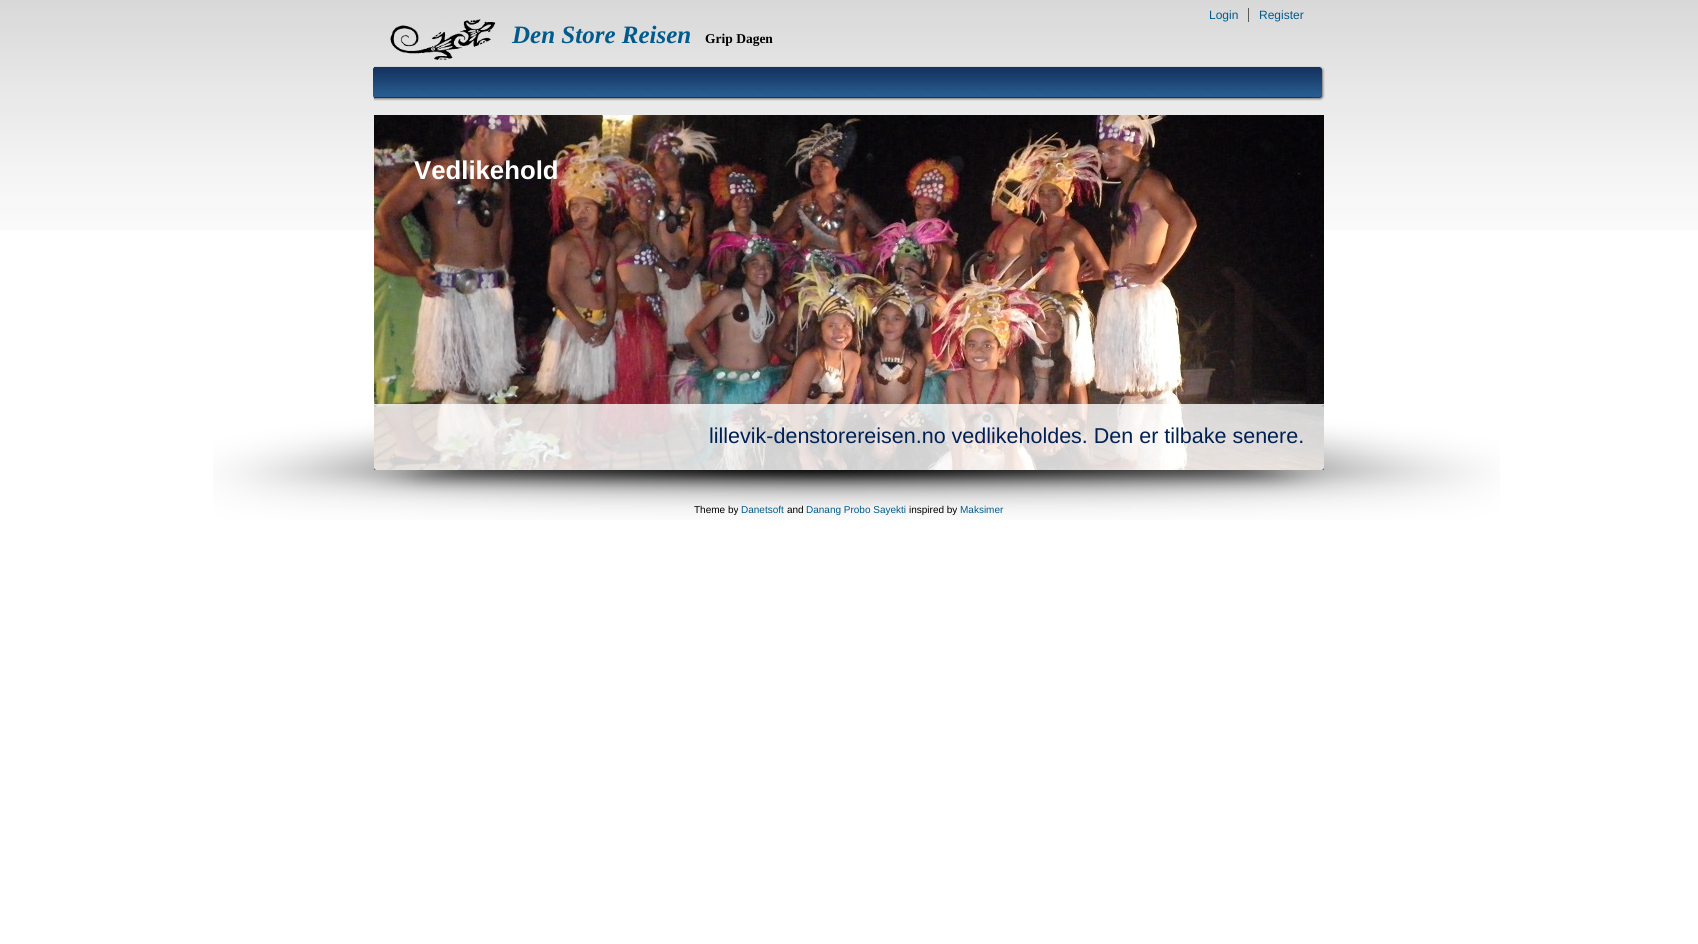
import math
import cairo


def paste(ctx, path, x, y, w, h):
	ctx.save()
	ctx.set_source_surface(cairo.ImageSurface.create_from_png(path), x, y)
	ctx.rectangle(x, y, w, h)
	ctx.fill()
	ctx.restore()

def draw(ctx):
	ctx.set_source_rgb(1, 1, 1)
	ctx.paint()
	paste(ctx, 'media/1.png', 0, 0, 1698, 230)
	ctx.select_font_face('Liberation Sans')
	ctx.set_font_size(12)
	ctx.set_source_rgb(0, 0.353, 0.549)
	ctx.move_to(1209, 19)
	ctx.show_text('Login')
	ctx.set_source_rgb(0.353, 0.353, 0.353)
	ctx.rectangle(1248, 8, 1, 14)
	ctx.fill()
	ctx.set_source_rgb(0, 0.353, 0.549)
	ctx.move_to(1259, 19)
	ctx.show_text('Register')
	paste(ctx, 'media/2.png', 390, 19, 106, 41)
	ctx.select_font_face('Liberation Serif', cairo.FONT_SLANT_ITALIC, cairo.FONT_WEIGHT_BOLD)
	ctx.set_font_size(25)
	ctx.move_to(512, 43)
	ctx.show_text('Den Store Reisen')
	ctx.select_font_face('Liberation Serif', cairo.FONT_SLANT_NORMAL, cairo.FONT_WEIGHT_BOLD)
	ctx.set_font_size(13.5)
	ctx.set_source_rgb(0, 0, 0)
	ctx.move_to(705, 43)
	ctx.show_text('Grip Dagen')
	paste(ctx, 'media/3.png', 374, 66, 937, 35)
	paste(ctx, 'media/4.png', 373, 66, 1, 35)
	paste(ctx, 'media/5.png', 1311, 66, 14, 35)
	paste(ctx, 'media/6.png', 213, 413, 1287, 107)
	paste(ctx, 'media/7.png', 374, 115, 950, 355)
	ctx.select_font_face('Liberation Sans', cairo.FONT_SLANT_NORMAL, cairo.FONT_WEIGHT_BOLD)
	ctx.set_font_size(25.75)
	ctx.set_source_rgb(1, 1, 1)
	ctx.move_to(414, 179)
	ctx.show_text('Vedlikehold')
	paste(ctx, 'media/8.png', 374, 404, 950, 66)
	ctx.select_font_face('Liberation Sans')
	ctx.set_font_size(21.5)
	ctx.set_source_rgb(0, 0.125, 0.329)
	ctx.move_to(709, 443)
	ctx.show_text('lillevik-denstorereisen.no vedlikeholdes. Den er tilbake senere.')
	ctx.set_font_size(10)
	ctx.set_source_rgb(0, 0, 0)
	ctx.move_to(694, 513)
	ctx.show_text('Theme by')
	ctx.set_source_rgb(0, 0.353, 0.549)
	ctx.move_to(741, 513)
	ctx.show_text('Danetsoft')
	ctx.set_source_rgb(0, 0, 0)
	ctx.move_to(787, 513)
	ctx.show_text('and')
	ctx.set_source_rgb(0, 0.353, 0.549)
	ctx.move_to(806, 513)
	ctx.show_text('Danang Probo Sayekti')
	ctx.set_source_rgb(0, 0, 0)
	ctx.move_to(909, 513)
	ctx.show_text('inspired by')
	ctx.set_source_rgb(0, 0.353, 0.549)
	ctx.move_to(960, 513)
	ctx.show_text('Maksimer')


surface = cairo.ImageSurface(cairo.FORMAT_RGB24, 1698, 944)
ctx = cairo.Context(surface)
options = cairo.FontOptions()
options.set_hint_metrics(cairo.HINT_METRICS_OFF)
options.set_hint_style(cairo.HINT_STYLE_NONE)
ctx.set_font_options(options)
ctx.set_miter_limit(4)
draw(ctx)
surface.write_to_png('image.png')
